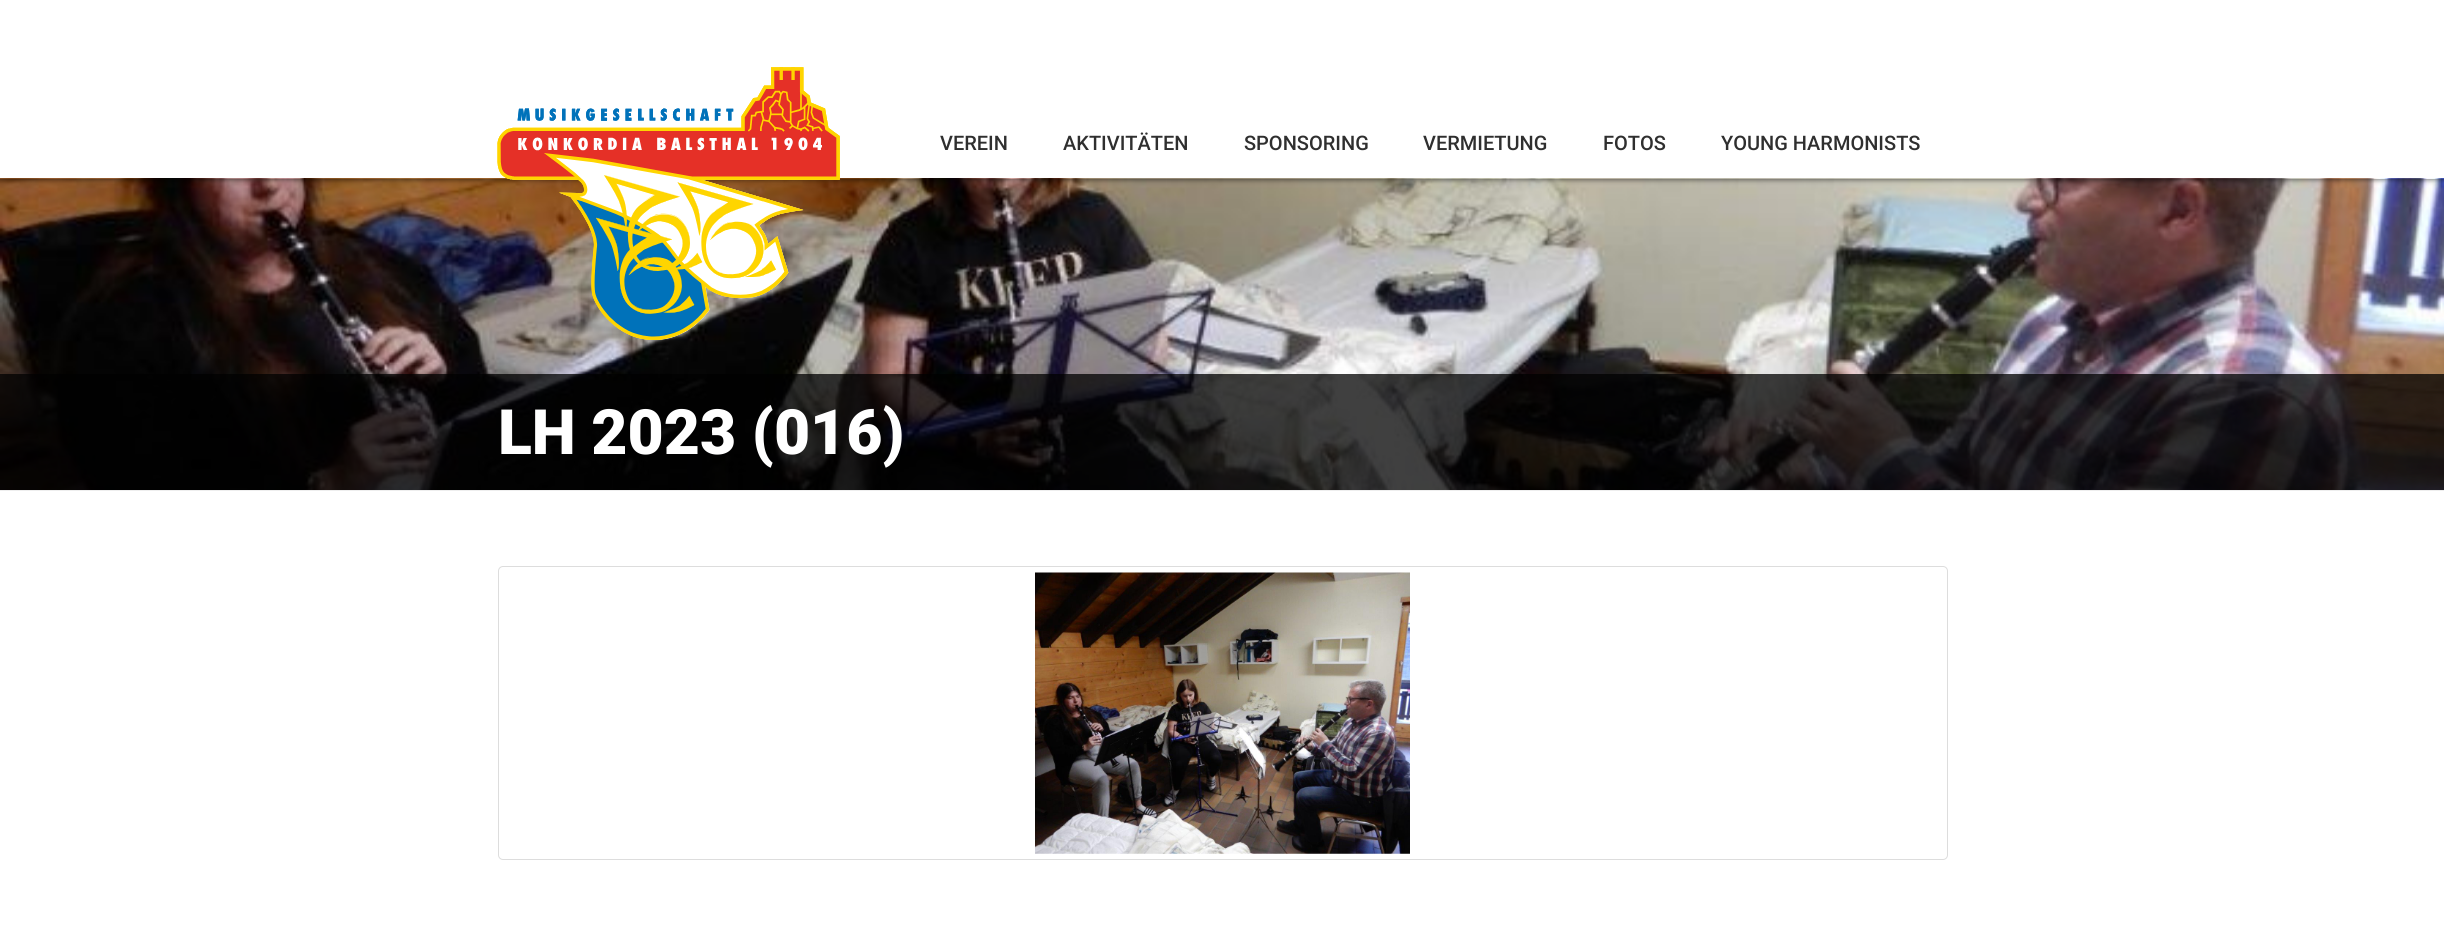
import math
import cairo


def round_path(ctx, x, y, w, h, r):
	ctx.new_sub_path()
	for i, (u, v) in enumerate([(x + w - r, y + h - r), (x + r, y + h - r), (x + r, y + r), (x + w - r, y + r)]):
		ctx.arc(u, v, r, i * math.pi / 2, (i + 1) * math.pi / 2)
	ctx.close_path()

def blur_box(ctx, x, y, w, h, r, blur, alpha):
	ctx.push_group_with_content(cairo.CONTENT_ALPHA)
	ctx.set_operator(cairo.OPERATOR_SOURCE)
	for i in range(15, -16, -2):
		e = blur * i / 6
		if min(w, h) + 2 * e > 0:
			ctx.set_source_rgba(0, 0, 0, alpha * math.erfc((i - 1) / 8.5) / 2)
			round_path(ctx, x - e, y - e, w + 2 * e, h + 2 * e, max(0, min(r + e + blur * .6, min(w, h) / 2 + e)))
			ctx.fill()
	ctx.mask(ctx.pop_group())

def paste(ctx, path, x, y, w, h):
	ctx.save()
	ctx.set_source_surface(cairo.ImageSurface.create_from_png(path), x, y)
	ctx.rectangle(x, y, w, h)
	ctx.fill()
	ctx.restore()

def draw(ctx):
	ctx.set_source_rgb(1, 1, 1)
	ctx.paint()
	paste(ctx, 'media/3.png', 0, 178, 2444, 312)
	ctx.save()
	ctx.set_fill_rule(cairo.FILL_RULE_EVEN_ODD)
	ctx.new_path()
	ctx.move_to(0, 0)
	ctx.line_to(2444, 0)
	ctx.line_to(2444, 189)
	ctx.line_to(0, 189)
	ctx.close_path()
	ctx.move_to(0, 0)
	ctx.line_to(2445, 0)
	ctx.line_to(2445, 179)
	ctx.line_to(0, 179)
	ctx.close_path()
	ctx.clip()
	ctx.set_source_rgb(0, 0, 0)
	blur_box(ctx, -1, -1, 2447, 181, 0, 2.5, 0.5)
	ctx.restore()
	paste(ctx, 'media/1.png', 497, 67, 343, 273)
	ctx.select_font_face('Roboto Medium')
	ctx.set_font_size(20)
	ctx.set_source_rgb(0.184, 0.184, 0.184)
	for x, y, s in [
		(940, 150, 'VEREIN'),
		(1063, 150, 'AKTIVITÄTEN'),
		(1244, 150, 'SPONSORING'),
		(1423, 150, 'VERMIETUNG'),
		(1603, 150, 'FOTOS'),
		(1721, 150, 'YOUNG HARMONISTS'),
	]:
		ctx.move_to(x, y)
		ctx.show_text(s)
	ctx.set_source_rgb(0.933, 0.933, 0.933)
	ctx.rectangle(0, 490, 2444, 1)
	ctx.fill()
	ctx.set_source_rgba(0, 0, 0, 0.75)
	ctx.rectangle(0, 374, 2444, 116)
	ctx.fill()
	ctx.select_font_face('Roboto Black')
	ctx.set_font_size(62.5)
	ctx.set_source_rgb(1, 1, 1)
	ctx.move_to(498, 454)
	ctx.show_text('LH 2023 (016)')
	round_path(ctx, 498.5, 566.5, 1449, 293, 4.5)
	ctx.set_source_rgb(0.867, 0.867, 0.867)
	ctx.set_line_width(1)
	ctx.stroke()
	paste(ctx, 'media/2.png', 1035, 572, 375, 282)


surface = cairo.ImageSurface(cairo.FORMAT_RGB24, 2444, 938)
ctx = cairo.Context(surface)
options = cairo.FontOptions()
options.set_hint_metrics(cairo.HINT_METRICS_OFF)
options.set_hint_style(cairo.HINT_STYLE_NONE)
ctx.set_font_options(options)
ctx.set_miter_limit(4)
draw(ctx)
surface.write_to_png('image.png')
